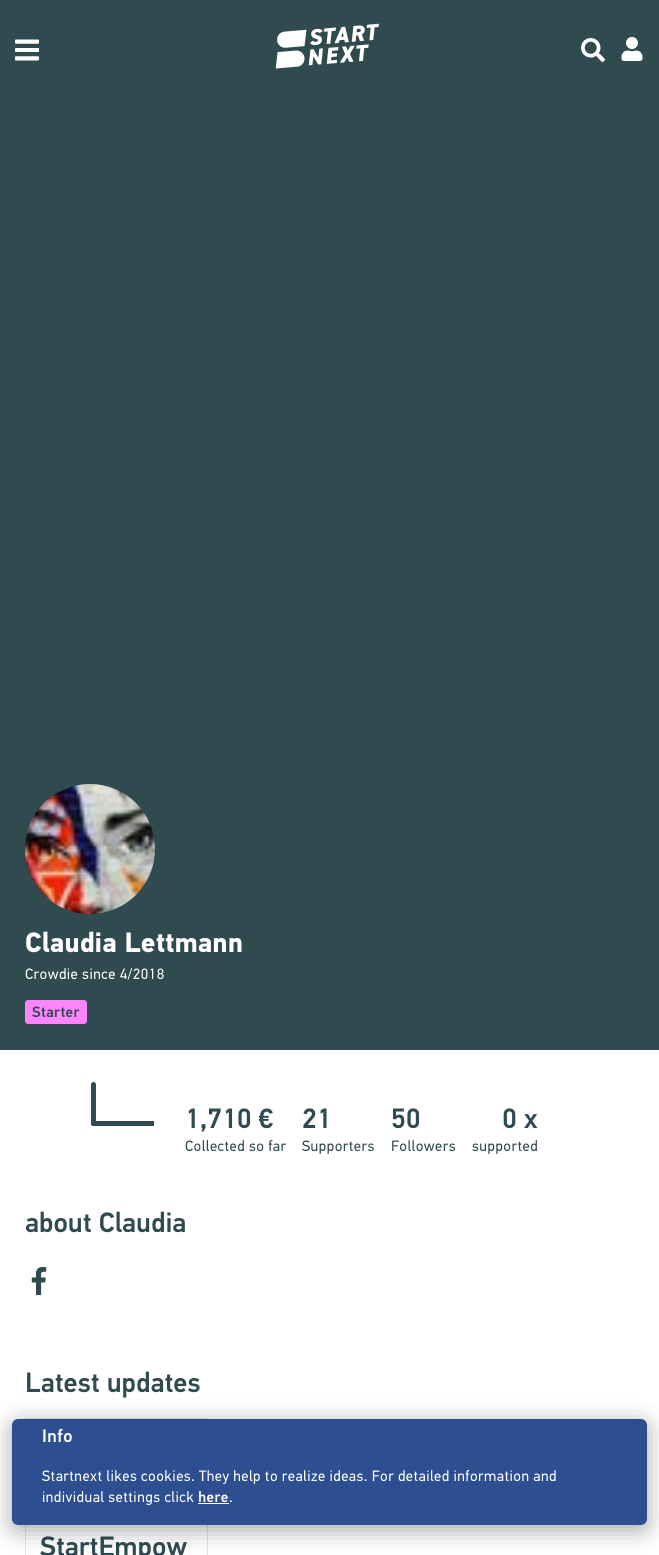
import math
import cairo


def write_spaced(ctx, x, y, s, letter, word):
	ctx.move_to(x, y)
	for ch in s:
		ctx.show_text(ch)
		ctx.rel_move_to(letter + word * (ch == ' '), 0)

def round_path(ctx, x, y, w, h, r):
	ctx.new_sub_path()
	for i, (u, v) in enumerate([(x + w - r, y + h - r), (x + r, y + h - r), (x + r, y + r), (x + w - r, y + r)]):
		ctx.arc(u, v, r, i * math.pi / 2, (i + 1) * math.pi / 2)
	ctx.close_path()

def blur_box(ctx, x, y, w, h, r, blur, alpha):
	ctx.push_group_with_content(cairo.CONTENT_ALPHA)
	ctx.set_operator(cairo.OPERATOR_SOURCE)
	for i in range(15, -16, -2):
		e = blur * i / 6
		if min(w, h) + 2 * e > 0:
			ctx.set_source_rgba(0, 0, 0, alpha * math.erfc((i - 1) / 8.5) / 2)
			round_path(ctx, x - e, y - e, w + 2 * e, h + 2 * e, max(0, min(r + e + blur * .6, min(w, h) / 2 + e)))
			ctx.fill()
	ctx.mask(ctx.pop_group())

def paste(ctx, path, x, y, w, h):
	ctx.save()
	ctx.set_source_surface(cairo.ImageSurface.create_from_png(path), x, y)
	ctx.rectangle(x, y, w, h)
	ctx.fill()
	ctx.restore()

def draw(ctx):
	ctx.set_source_rgb(1, 1, 1)
	ctx.paint()
	ctx.set_source_rgb(0.188, 0.294, 0.314)
	ctx.rectangle(0, 0, 659, 1050)
	ctx.fill()
	paste(ctx, 'media/1.png', 15, 39, 24, 22)
	paste(ctx, 'media/2.png', 275, 23, 104, 46)
	paste(ctx, 'media/3.png', 581, 38, 24, 24)
	paste(ctx, 'media/4.png', 621, 37, 22, 24)
	paste(ctx, 'media/5.png', 25, 784, 130, 130)
	ctx.select_font_face('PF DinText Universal', cairo.FONT_SLANT_NORMAL, cairo.FONT_WEIGHT_BOLD)
	ctx.set_font_size(28)
	ctx.set_source_rgb(1, 1, 1)
	ctx.move_to(25, 952)
	ctx.show_text('Claudia Lettmann')
	ctx.select_font_face('PF DinText Universal')
	ctx.set_font_size(15)
	write_spaced(ctx, 25, 979, 'Crowdie since 4/2018', 0.45, 0)
	ctx.set_source_rgb(1, 0.522, 1)
	round_path(ctx, 25, 1000, 62, 24, 3)
	ctx.fill()
	ctx.select_font_face('PF DinText Universal Medium')
	ctx.set_source_rgb(0.188, 0.294, 0.314)
	write_spaced(ctx, 32, 1017, 'Starter', 0.45, 0)
	ctx.new_path()
	ctx.move_to(93.5, 1084.5)
	ctx.line_to(93.5, 1123.5)
	ctx.set_line_width(5)
	ctx.set_line_cap(cairo.LINE_CAP_ROUND)
	ctx.stroke()
	ctx.save()
	ctx.rectangle(91, 1082, 63, 65)
	ctx.clip()
	ctx.new_path()
	ctx.move_to(184.5, 1123.5)
	ctx.line_to(93.5, 1123.5)
	ctx.move_to(168.5, 1103.5)
	ctx.line_to(188.5, 1123.5)
	ctx.move_to(168.5, 1143.5)
	ctx.line_to(188.5, 1123.5)
	ctx.stroke()
	ctx.restore()
	ctx.set_font_size(28)
	ctx.move_to(185, 1128)
	ctx.show_text('1,710 €')
	ctx.select_font_face('PF DinText Universal')
	ctx.set_font_size(15)
	write_spaced(ctx, 185, 1151, 'Collected so far', 0.45, 0)
	ctx.select_font_face('PF DinText Universal Medium')
	ctx.set_font_size(28)
	ctx.move_to(302, 1128)
	ctx.show_text('21')
	ctx.select_font_face('PF DinText Universal')
	ctx.set_font_size(15)
	write_spaced(ctx, 302, 1151, 'Supporters', 0.45, 0)
	ctx.select_font_face('PF DinText Universal Medium')
	ctx.set_font_size(28)
	ctx.move_to(391, 1128)
	ctx.show_text('50')
	ctx.select_font_face('PF DinText Universal')
	ctx.set_font_size(15)
	write_spaced(ctx, 391, 1151, 'Followers', 0.45, 0)
	ctx.select_font_face('PF DinText Universal Medium')
	ctx.set_font_size(28)
	ctx.move_to(502, 1128)
	ctx.show_text('0 x')
	ctx.select_font_face('PF DinText Universal')
	ctx.set_font_size(15)
	write_spaced(ctx, 472, 1151, 'supported', 0.45, 0)
	ctx.select_font_face('PF DinText Universal Medium')
	ctx.set_font_size(28)
	ctx.move_to(25, 1232)
	ctx.show_text('about Claudia')
	paste(ctx, 'media/6.png', 31, 1267, 16, 28)
	ctx.move_to(25, 1392)
	ctx.show_text('Latest updates')
	ctx.rectangle(25.5, 1418.5, 182, 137)
	ctx.set_source_rgb(0.894, 0.894, 0.894)
	ctx.set_line_width(1)
	ctx.set_line_cap(cairo.LINE_CAP_BUTT)
	ctx.stroke()
	ctx.set_source_rgb(0.188, 0.294, 0.314)
	ctx.move_to(40, 1556)
	ctx.show_text('StartEmpow')
	ctx.save()
	ctx.set_fill_rule(cairo.FILL_RULE_EVEN_ODD)
	ctx.new_path()
	ctx.move_to(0, 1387)
	ctx.line_to(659, 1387)
	ctx.line_to(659, 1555)
	ctx.line_to(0, 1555)
	ctx.close_path()
	ctx.move_to(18, 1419)
	ctx.line_to(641, 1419)
	ctx.curve_to(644.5, 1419, 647, 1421.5, 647, 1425)
	ctx.line_to(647, 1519)
	ctx.curve_to(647, 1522.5, 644.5, 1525, 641, 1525)
	ctx.line_to(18, 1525)
	ctx.curve_to(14.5, 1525, 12, 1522.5, 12, 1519)
	ctx.line_to(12, 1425)
	ctx.curve_to(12, 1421.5, 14.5, 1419, 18, 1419)
	ctx.close_path()
	ctx.clip()
	ctx.set_source_rgb(0, 0, 0)
	blur_box(ctx, 12, 1424, 635, 106, 6, 12, 0.35)
	ctx.restore()
	ctx.set_source_rgba(0.141, 0.275, 0.553, 0.95)
	round_path(ctx, 12, 1419, 635, 106, 6)
	ctx.fill()
	ctx.set_font_size(18)
	ctx.set_source_rgb(1, 1, 1)
	write_spaced(ctx, 42, 1442, 'Info', 0.45, 0)
	ctx.select_font_face('PF DinText Universal')
	ctx.set_font_size(15)
	write_spaced(ctx, 42, 1481, 'Startnext likes cookies. They help to realize ideas. For detailed information and', 0.45, 0)
	write_spaced(ctx, 42, 1502, 'individual settings click', 0.45, 0)
	ctx.select_font_face('PF DinText Universal Medium')
	write_spaced(ctx, 198, 1502, 'here', 0.45, 0)
	ctx.rectangle(198, 1503, 31, 1)
	ctx.fill()
	ctx.select_font_face('PF DinText Universal')
	write_spaced(ctx, 229, 1502, '.', 0.45, 0)


surface = cairo.ImageSurface(cairo.FORMAT_RGB24, 659, 1555)
ctx = cairo.Context(surface)
options = cairo.FontOptions()
options.set_hint_metrics(cairo.HINT_METRICS_OFF)
options.set_hint_style(cairo.HINT_STYLE_NONE)
ctx.set_font_options(options)
ctx.set_miter_limit(4)
draw(ctx)
surface.write_to_png('image.png')
